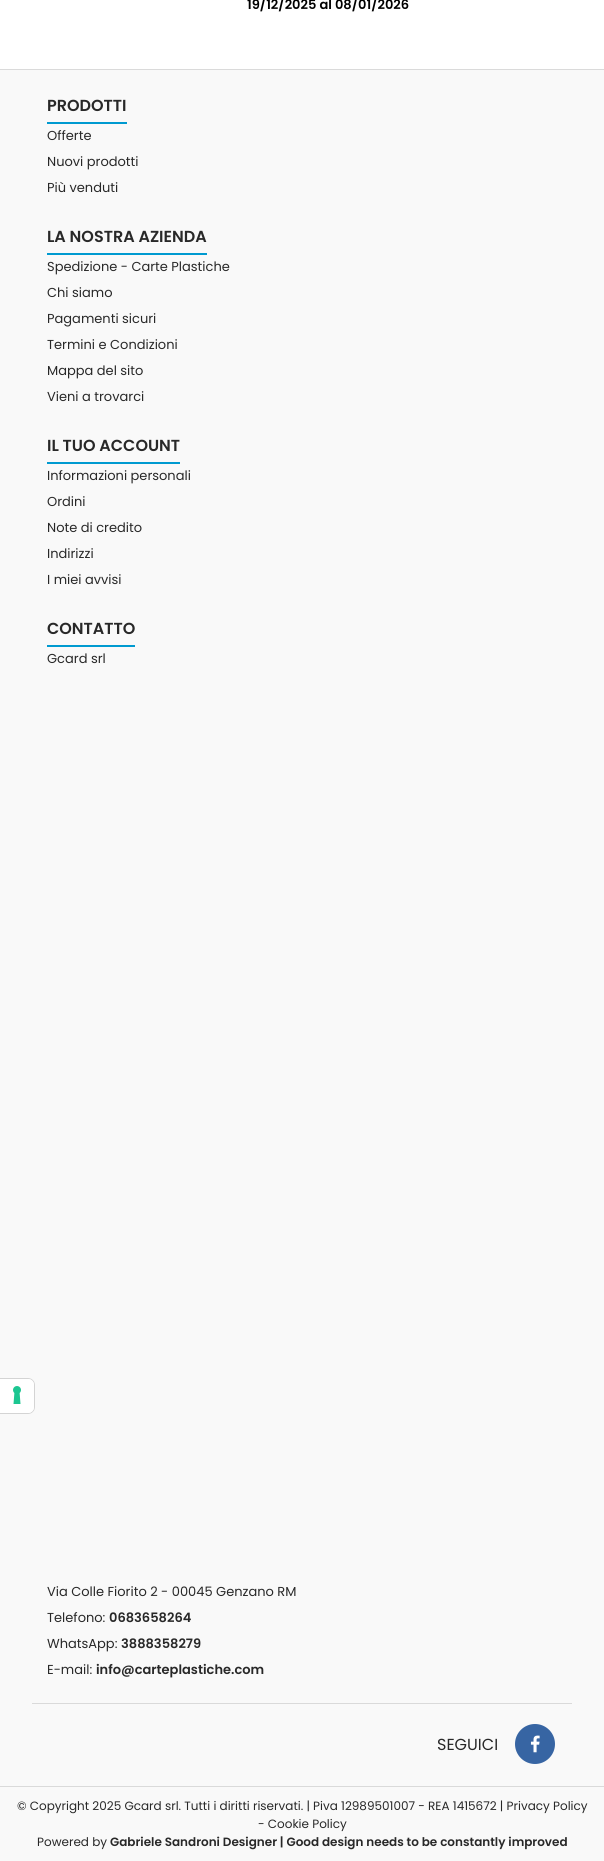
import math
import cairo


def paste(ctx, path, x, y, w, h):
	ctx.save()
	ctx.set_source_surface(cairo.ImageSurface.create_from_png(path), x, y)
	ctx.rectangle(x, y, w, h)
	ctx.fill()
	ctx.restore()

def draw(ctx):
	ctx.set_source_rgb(1, 1, 1)
	ctx.paint()
	ctx.select_font_face('Poppins SemiBold')
	ctx.set_font_size(13)
	ctx.set_source_rgb(0, 0, 0)
	ctx.move_to(247, 9)
	ctx.show_text('19/12/2025 al 08/01/2026')
	ctx.set_source_rgb(0.976, 0.976, 0.976)
	ctx.rectangle(0, 70, 604, 1791)
	ctx.fill()
	ctx.set_source_rgb(0.855, 0.855, 0.855)
	ctx.rectangle(0, 69, 604, 1)
	ctx.fill()
	ctx.set_source_rgb(0, 0.604, 0.816)
	ctx.rectangle(47, 122, 80, 2)
	ctx.fill()
	ctx.set_font_size(16)
	ctx.set_source_rgb(0.157, 0.157, 0.157)
	ctx.move_to(47, 111)
	ctx.show_text('PRODOTTI')
	ctx.select_font_face('Poppins')
	ctx.set_font_size(13)
	for x, y, s in [
		(47, 140, 'Offerte'),
		(47, 166, 'Nuovi prodotti'),
		(47, 192, 'Più venduti'),
	]:
		ctx.move_to(x, y)
		ctx.show_text(s)
	ctx.set_source_rgb(0, 0.604, 0.816)
	ctx.rectangle(47, 253, 160, 2)
	ctx.fill()
	ctx.select_font_face('Poppins SemiBold')
	ctx.set_font_size(16)
	ctx.set_source_rgb(0.157, 0.157, 0.157)
	ctx.move_to(47, 242)
	ctx.show_text('LA NOSTRA AZIENDA')
	ctx.select_font_face('Poppins')
	ctx.set_font_size(13)
	for x, y, s in [
		(47, 271, 'Spedizione - Carte Plastiche'),
		(47, 297, 'Chi siamo'),
		(47, 323, 'Pagamenti sicuri'),
		(47, 349, 'Termini e Condizioni'),
		(47, 375, 'Mappa del sito'),
		(47, 401, 'Vieni a trovarci'),
	]:
		ctx.move_to(x, y)
		ctx.show_text(s)
	ctx.set_source_rgb(0, 0.604, 0.816)
	ctx.rectangle(47, 462, 133, 2)
	ctx.fill()
	ctx.select_font_face('Poppins SemiBold')
	ctx.set_font_size(16)
	ctx.set_source_rgb(0.157, 0.157, 0.157)
	ctx.move_to(47, 451)
	ctx.show_text('IL TUO ACCOUNT')
	ctx.select_font_face('Poppins')
	ctx.set_font_size(13)
	for x, y, s in [
		(47, 480, 'Informazioni personali'),
		(47, 506, 'Ordini'),
		(47, 532, 'Note di credito'),
		(47, 558, 'Indirizzi'),
		(47, 584, 'I miei avvisi'),
	]:
		ctx.move_to(x, y)
		ctx.show_text(s)
	ctx.set_source_rgb(0, 0.604, 0.816)
	ctx.rectangle(47, 645, 88, 2)
	ctx.fill()
	ctx.select_font_face('Poppins SemiBold')
	ctx.set_font_size(16)
	ctx.set_source_rgb(0.157, 0.157, 0.157)
	ctx.move_to(47, 634)
	ctx.show_text('CONTATTO')
	ctx.select_font_face('Poppins')
	ctx.set_font_size(13)
	for x, y, s in [
		(47, 663, 'Gcard srl'),
		(47, 1596, 'Via Colle Fiorito 2 - 00045 Genzano RM'),
		(47, 1622, 'Telefono:'),
	]:
		ctx.move_to(x, y)
		ctx.show_text(s)
	ctx.select_font_face('Poppins SemiBold')
	ctx.move_to(109, 1622)
	ctx.show_text('0683658264')
	ctx.select_font_face('Poppins')
	ctx.move_to(47, 1648)
	ctx.show_text('WhatsApp:')
	ctx.select_font_face('Poppins SemiBold')
	ctx.move_to(121, 1648)
	ctx.show_text('3888358279')
	ctx.select_font_face('Poppins')
	ctx.move_to(47, 1674)
	ctx.show_text('E-mail:')
	ctx.select_font_face('Poppins SemiBold')
	ctx.move_to(96, 1674)
	ctx.show_text('info@carteplastiche.com')
	ctx.set_source_rgb(0.855, 0.855, 0.855)
	ctx.rectangle(32, 1703, 540, 1)
	ctx.fill()
	ctx.select_font_face('Poppins')
	ctx.set_font_size(16)
	ctx.set_source_rgb(0.157, 0.157, 0.157)
	ctx.move_to(437, 1750)
	ctx.show_text('SEGUICI')
	ctx.set_source_rgb(0.216, 0.396, 0.639)
	ctx.new_path()
	ctx.arc(535, 1744, 20, 0, 2 * math.pi)
	ctx.fill()
	paste(ctx, 'media/1.png', 530, 1735, 10, 18)
	ctx.set_source_rgb(0.855, 0.855, 0.855)
	ctx.rectangle(0, 1786, 604, 1)
	ctx.fill()
	ctx.set_font_size(12)
	ctx.set_source_rgb(0.157, 0.157, 0.157)
	for x, y, s in [
		(17, 1810, '© Copyright 2025 Gcard srl. Tutti i diritti riservati. | Piva 12989501007 - REA 1415672 | Privacy Policy'),
		(258, 1828, '- Cookie Policy'),
		(37, 1846, 'Powered by'),
	]:
		ctx.move_to(x, y)
		ctx.show_text(s)
	ctx.select_font_face('Poppins SemiBold')
	ctx.move_to(110, 1846)
	ctx.show_text('Gabriele Sandroni Designer | Good design needs to be constantly improved')
	ctx.new_path()
	ctx.move_to(-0.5, 1378.5)
	ctx.line_to(28, 1378.5)
	ctx.curve_to(31.5, 1378.5, 34.5, 1381.5, 34.5, 1385)
	ctx.line_to(34.5, 1407)
	ctx.curve_to(34.5, 1410.5, 31.5, 1413.5, 28, 1413.5)
	ctx.line_to(-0.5, 1413.5)
	ctx.close_path()
	ctx.set_source_rgb(0.831, 0.831, 0.831)
	ctx.set_line_width(1)
	ctx.stroke()
	ctx.set_source_rgb(1, 1, 1)
	ctx.new_path()
	ctx.move_to(0, 1379)
	ctx.line_to(28, 1379)
	ctx.curve_to(31.5, 1379, 34, 1381.5, 34, 1385)
	ctx.line_to(34, 1407)
	ctx.curve_to(34, 1410.5, 31.5, 1413, 28, 1413)
	ctx.line_to(0, 1413)
	ctx.close_path()
	ctx.fill()
	paste(ctx, 'media/2.png', 13, 1386, 8, 18)


surface = cairo.ImageSurface(cairo.FORMAT_RGB24, 604, 1861)
ctx = cairo.Context(surface)
options = cairo.FontOptions()
options.set_hint_metrics(cairo.HINT_METRICS_OFF)
options.set_hint_style(cairo.HINT_STYLE_NONE)
ctx.set_font_options(options)
ctx.set_miter_limit(4)
draw(ctx)
surface.write_to_png('image.png')
